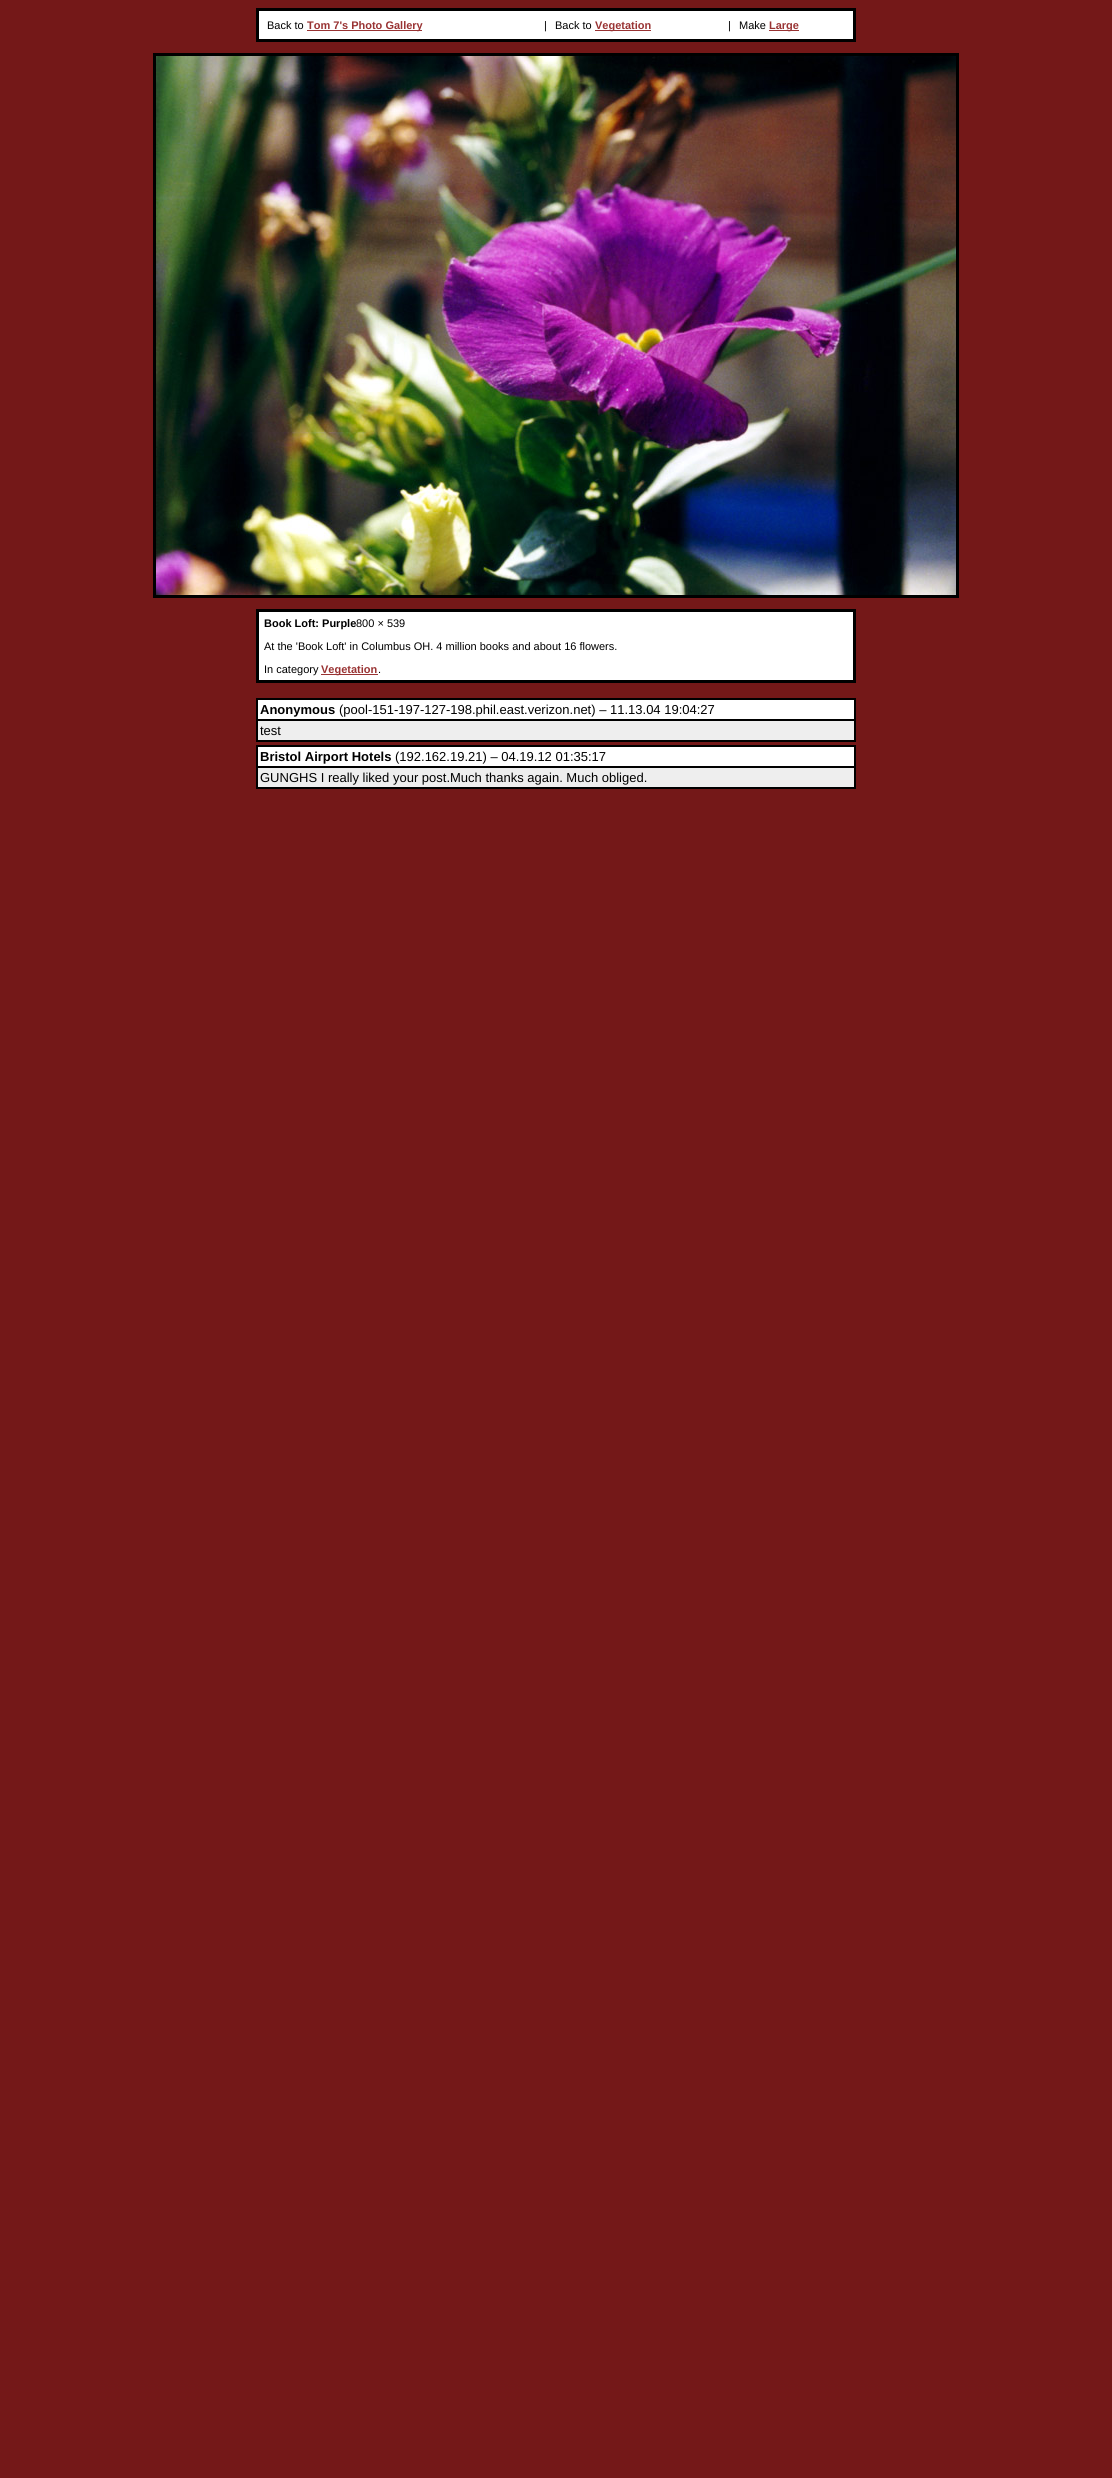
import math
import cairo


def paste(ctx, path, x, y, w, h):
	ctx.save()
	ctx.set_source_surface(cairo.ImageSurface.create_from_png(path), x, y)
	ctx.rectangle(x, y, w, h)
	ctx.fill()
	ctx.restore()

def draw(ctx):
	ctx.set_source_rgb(0.455, 0.094, 0.094)
	ctx.paint()
	ctx.set_source_rgb(0, 0, 0)
	ctx.rectangle(256, 8, 600, 34)
	ctx.fill()
	ctx.set_source_rgb(1, 1, 1)
	ctx.rectangle(259, 11, 594, 28)
	ctx.fill()
	ctx.select_font_face('Liberation Sans')
	ctx.set_font_size(11)
	ctx.set_source_rgb(0, 0, 0)
	ctx.move_to(267, 29)
	ctx.show_text('Back to')
	ctx.set_source_rgb(0.6, 0.2, 0.2)
	ctx.rectangle(307, 30, 115, 1)
	ctx.fill()
	ctx.select_font_face('Liberation Sans', cairo.FONT_SLANT_NORMAL, cairo.FONT_WEIGHT_BOLD)
	ctx.move_to(307, 29)
	ctx.show_text('Tom 7\'s Photo Gallery')
	ctx.select_font_face('Liberation Sans')
	ctx.set_source_rgb(0, 0, 0)
	ctx.move_to(544, 29)
	ctx.show_text('|')
	ctx.move_to(555, 29)
	ctx.show_text('Back to')
	ctx.set_source_rgb(0.6, 0.2, 0.2)
	ctx.rectangle(595, 30, 56, 1)
	ctx.fill()
	ctx.select_font_face('Liberation Sans', cairo.FONT_SLANT_NORMAL, cairo.FONT_WEIGHT_BOLD)
	ctx.move_to(595, 29)
	ctx.show_text('Vegetation')
	ctx.select_font_face('Liberation Sans')
	ctx.set_source_rgb(0, 0, 0)
	ctx.move_to(728, 29)
	ctx.show_text('|')
	ctx.move_to(739, 29)
	ctx.show_text('Make')
	ctx.set_source_rgb(0.6, 0.2, 0.2)
	ctx.rectangle(769, 30, 30, 1)
	ctx.fill()
	ctx.select_font_face('Liberation Sans', cairo.FONT_SLANT_NORMAL, cairo.FONT_WEIGHT_BOLD)
	ctx.move_to(769, 29)
	ctx.show_text('Large')
	ctx.set_source_rgb(0, 0, 0)
	ctx.rectangle(153, 53, 806, 545)
	ctx.fill()
	paste(ctx, 'media/1.png', 156, 56, 800, 539)
	ctx.rectangle(256, 609, 600, 74)
	ctx.fill()
	ctx.set_source_rgb(1, 1, 1)
	ctx.rectangle(259, 612, 594, 68)
	ctx.fill()
	ctx.set_source_rgb(0, 0, 0)
	ctx.move_to(264, 627)
	ctx.show_text('Book Loft: Purple')
	ctx.select_font_face('Liberation Sans')
	for x, y, s in [
		(356, 627, '800 × 539'),
		(264, 650, 'At the \'Book Loft\' in Columbus OH. 4 million books and about 16 flowers.'),
		(264, 673, 'In category'),
	]:
		ctx.move_to(x, y)
		ctx.show_text(s)
	ctx.set_source_rgb(0.6, 0.2, 0.2)
	ctx.rectangle(321, 674, 57, 1)
	ctx.fill()
	ctx.select_font_face('Liberation Sans', cairo.FONT_SLANT_NORMAL, cairo.FONT_WEIGHT_BOLD)
	ctx.move_to(321, 673)
	ctx.show_text('Vegetation')
	ctx.select_font_face('Liberation Sans')
	ctx.set_source_rgb(0, 0, 0)
	ctx.move_to(378, 673)
	ctx.show_text('.')
	ctx.rectangle(256, 698, 600, 44)
	ctx.fill()
	ctx.set_source_rgb(1, 1, 1)
	ctx.rectangle(258, 700, 596, 19)
	ctx.fill()
	ctx.select_font_face('Liberation Sans', cairo.FONT_SLANT_NORMAL, cairo.FONT_WEIGHT_BOLD)
	ctx.set_font_size(13)
	ctx.set_source_rgb(0, 0, 0)
	ctx.move_to(260, 714)
	ctx.show_text('Anonymous')
	ctx.select_font_face('Liberation Sans')
	ctx.move_to(339, 714)
	ctx.show_text('(pool-151-197-127-198.phil.east.verizon.net) – 11.13.04 19:04:27')
	ctx.set_source_rgb(0.933, 0.933, 0.933)
	ctx.rectangle(258, 721, 596, 19)
	ctx.fill()
	ctx.set_source_rgb(0, 0, 0)
	ctx.move_to(260, 735)
	ctx.show_text('test')
	ctx.rectangle(256, 745, 600, 44)
	ctx.fill()
	ctx.set_source_rgb(1, 1, 1)
	ctx.rectangle(258, 747, 596, 19)
	ctx.fill()
	ctx.select_font_face('Liberation Sans', cairo.FONT_SLANT_NORMAL, cairo.FONT_WEIGHT_BOLD)
	ctx.set_source_rgb(0, 0, 0)
	ctx.move_to(260, 761)
	ctx.show_text('Bristol Airport Hotels')
	ctx.select_font_face('Liberation Sans')
	ctx.move_to(395, 761)
	ctx.show_text('(192.162.19.21) – 04.19.12 01:35:17')
	ctx.set_source_rgb(0.933, 0.933, 0.933)
	ctx.rectangle(258, 768, 596, 19)
	ctx.fill()
	ctx.set_source_rgb(0, 0, 0)
	ctx.move_to(260, 782)
	ctx.show_text('GUNGHS I really liked your post.Much thanks again. Much obliged.')


surface = cairo.ImageSurface(cairo.FORMAT_RGB24, 1112, 2478)
ctx = cairo.Context(surface)
options = cairo.FontOptions()
options.set_hint_metrics(cairo.HINT_METRICS_OFF)
options.set_hint_style(cairo.HINT_STYLE_NONE)
ctx.set_font_options(options)
ctx.set_miter_limit(4)
draw(ctx)
surface.write_to_png('image.png')
